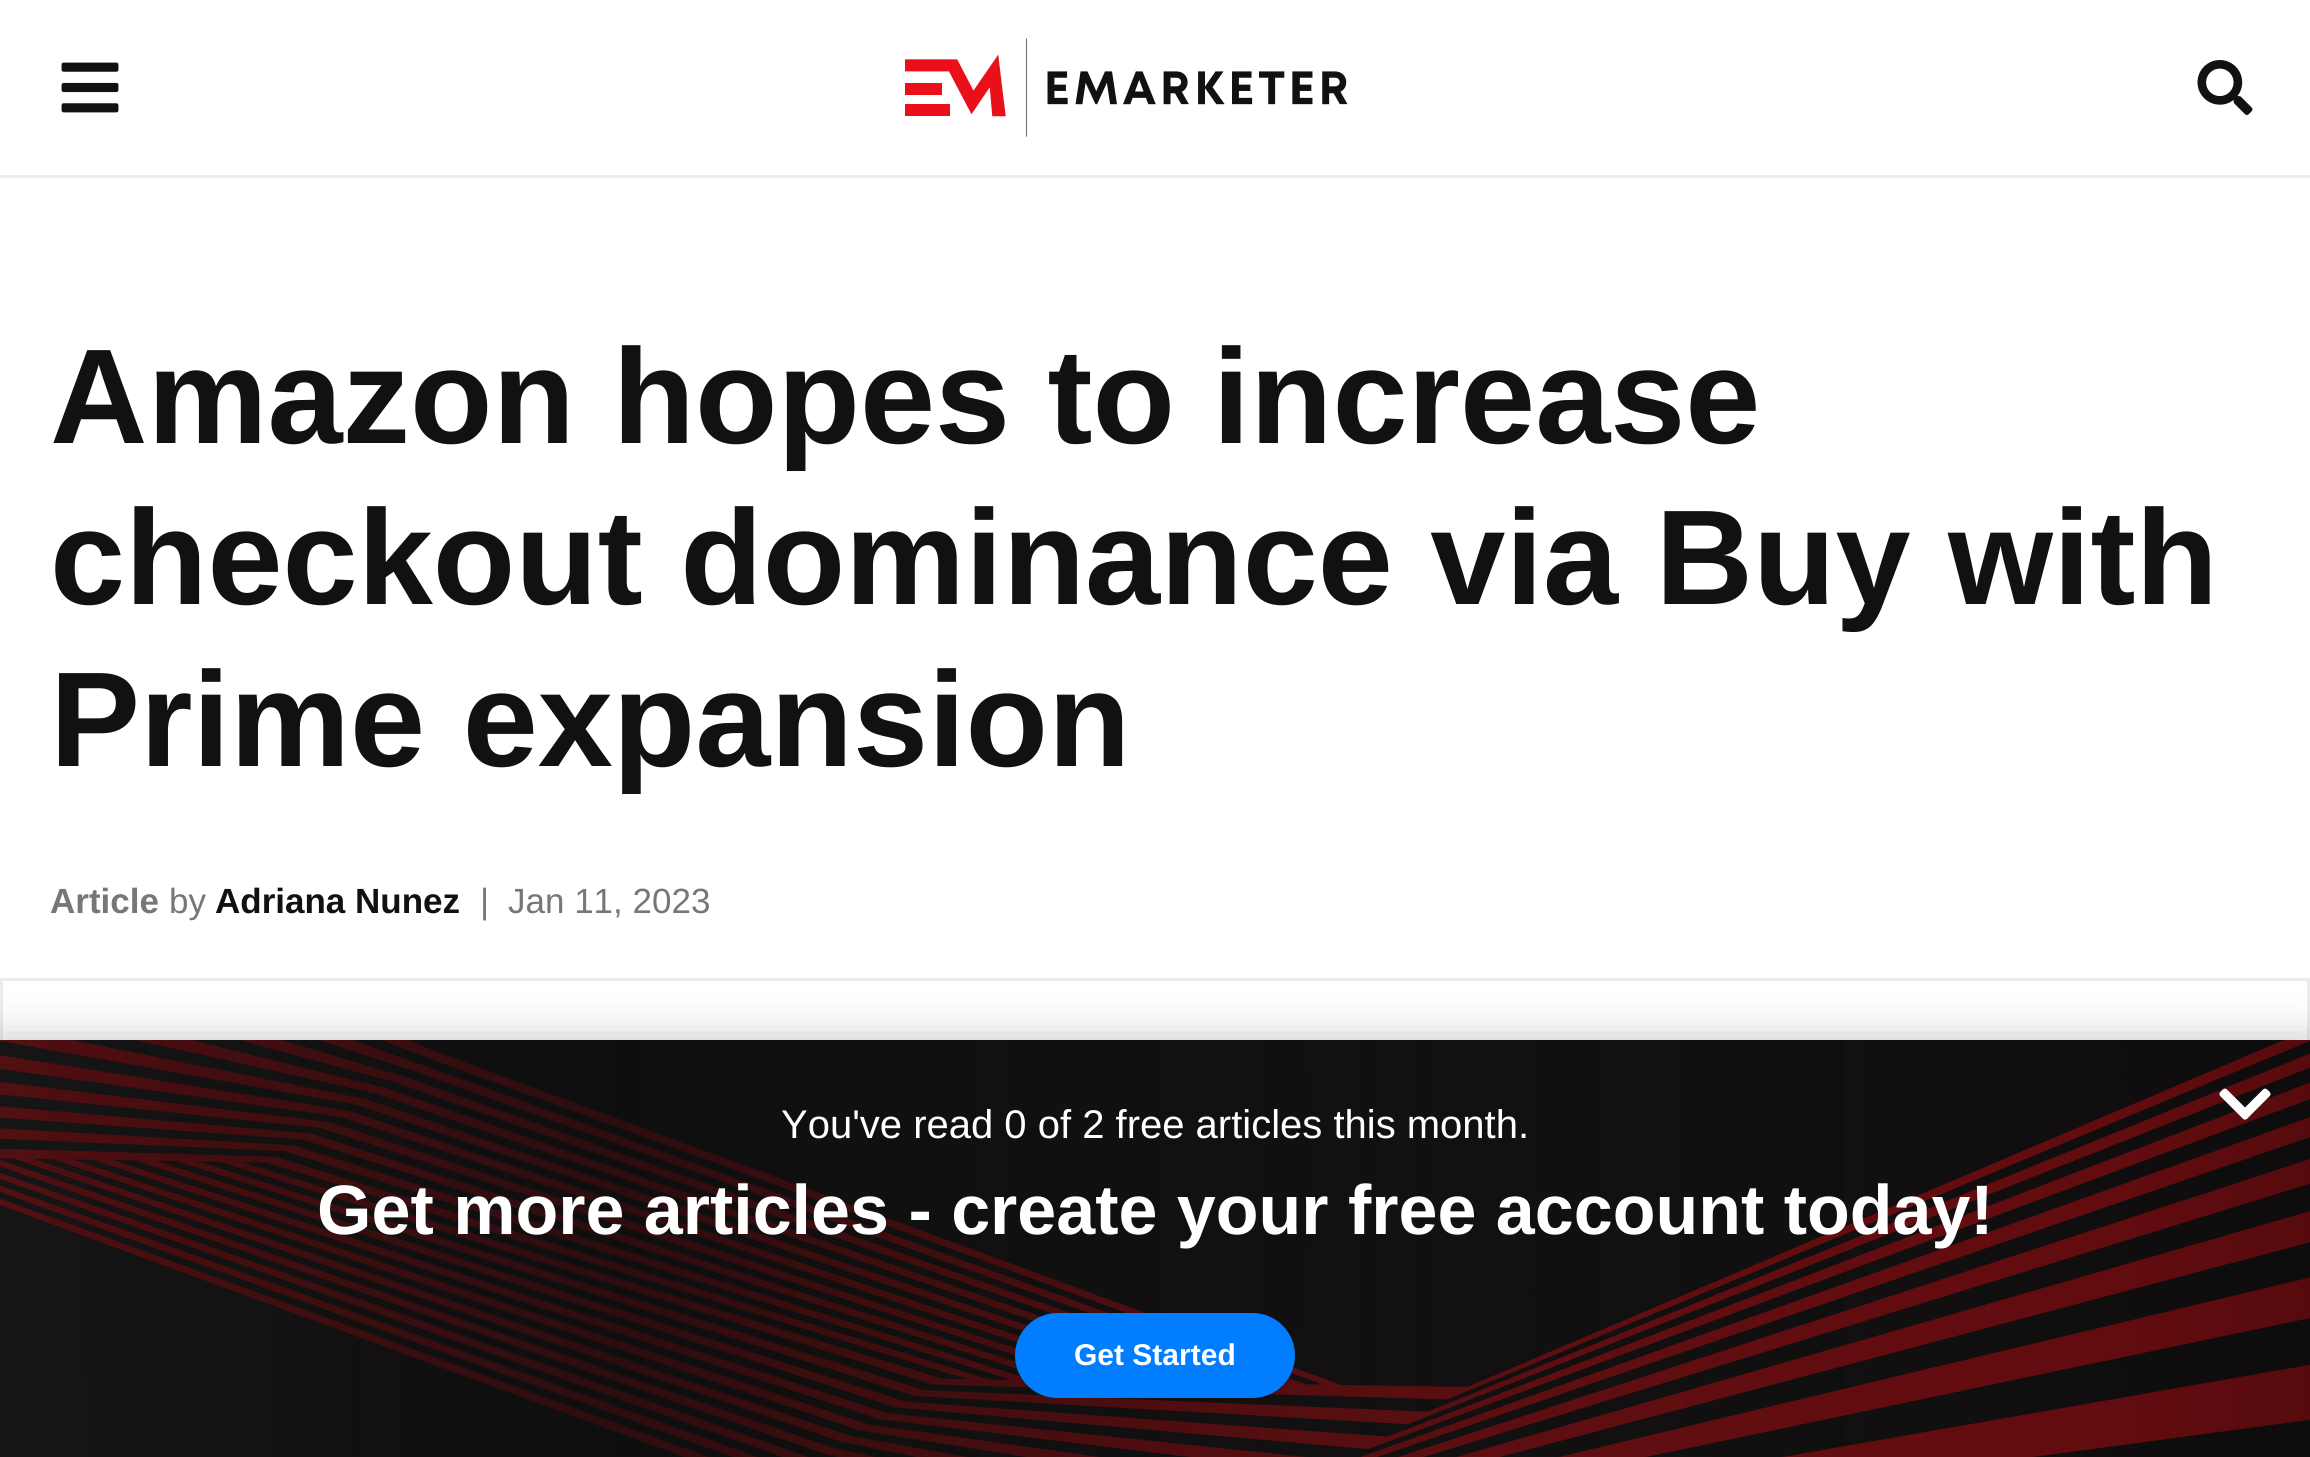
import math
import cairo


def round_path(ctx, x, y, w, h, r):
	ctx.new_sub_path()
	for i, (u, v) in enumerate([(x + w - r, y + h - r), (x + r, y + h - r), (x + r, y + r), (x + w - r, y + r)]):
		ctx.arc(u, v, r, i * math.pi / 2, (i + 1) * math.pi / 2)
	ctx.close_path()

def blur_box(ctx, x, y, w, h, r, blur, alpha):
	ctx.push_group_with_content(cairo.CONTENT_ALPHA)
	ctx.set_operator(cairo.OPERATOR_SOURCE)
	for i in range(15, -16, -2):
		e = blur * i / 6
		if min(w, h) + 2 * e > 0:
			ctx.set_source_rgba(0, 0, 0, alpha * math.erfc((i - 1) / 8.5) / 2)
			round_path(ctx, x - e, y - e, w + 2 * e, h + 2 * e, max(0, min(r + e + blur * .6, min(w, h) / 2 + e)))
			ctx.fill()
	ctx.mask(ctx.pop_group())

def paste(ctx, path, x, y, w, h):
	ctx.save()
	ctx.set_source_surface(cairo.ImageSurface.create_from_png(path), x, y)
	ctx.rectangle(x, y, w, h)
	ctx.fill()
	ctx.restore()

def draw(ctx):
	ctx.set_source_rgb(1, 1, 1)
	ctx.paint()
	ctx.set_source_rgb(0.922, 0.922, 0.922)
	ctx.rectangle(0, 175, 2310, 3)
	ctx.fill()
	paste(ctx, 'media/1.png', 61, 62, 58, 51)
	paste(ctx, 'media/2.png', 905, 38, 443, 99)
	paste(ctx, 'media/3.png', 2197, 60, 56, 55)
	ctx.select_font_face('Liberation Sans', cairo.FONT_SLANT_NORMAL, cairo.FONT_WEIGHT_BOLD)
	ctx.set_font_size(135)
	ctx.set_source_rgb(0.067, 0.067, 0.067)
	for x, y, s in [
		(50, 443, 'Amazon hopes to increase'),
		(50, 604, 'checkout dominance via Buy with'),
		(50, 766, 'Prime expansion'),
	]:
		ctx.move_to(x, y)
		ctx.show_text(s)
	ctx.set_font_size(35)
	ctx.set_source_rgb(0.467, 0.467, 0.467)
	ctx.move_to(50, 913)
	ctx.show_text('Article')
	ctx.select_font_face('Liberation Sans')
	ctx.move_to(169, 913)
	ctx.show_text('by')
	ctx.select_font_face('Liberation Sans', cairo.FONT_SLANT_NORMAL, cairo.FONT_WEIGHT_BOLD)
	ctx.set_source_rgb(0.067, 0.067, 0.067)
	ctx.move_to(215, 913)
	ctx.show_text('Adriana Nunez')
	ctx.select_font_face('Liberation Sans')
	ctx.set_source_rgb(0.467, 0.467, 0.467)
	ctx.move_to(480, 913)
	ctx.show_text('|')
	ctx.move_to(508, 913)
	ctx.show_text('Jan 11, 2023')
	ctx.rectangle(1.5, 979.5, 2307, 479)
	ctx.set_source_rgb(0.922, 0.922, 0.922)
	ctx.set_line_width(3)
	ctx.stroke()
	ctx.set_source_rgb(0, 0, 0)
	blur_box(ctx, 0, 1035, 2310, 418, 0, 20, 0.2)
	paste(ctx, 'media/4.png', 0, 1040, 2310, 417)
	paste(ctx, 'media/5.png', 2219, 1088, 52, 32)
	ctx.set_font_size(40)
	ctx.set_source_rgb(1, 1, 1)
	ctx.move_to(781, 1138)
	ctx.show_text('You\'ve read 0 of 2 free articles this month.')
	ctx.select_font_face('Liberation Sans', cairo.FONT_SLANT_NORMAL, cairo.FONT_WEIGHT_BOLD)
	ctx.set_font_size(70)
	ctx.move_to(317, 1234)
	ctx.show_text('Get more articles - create your free account today!')
	ctx.set_source_rgb(0, 0.494, 1)
	round_path(ctx, 1015, 1313, 280, 85, 42.5)
	ctx.fill()
	ctx.set_font_size(30)
	ctx.set_source_rgb(1, 1, 1)
	ctx.move_to(1074, 1365)
	ctx.show_text('Get Started')


surface = cairo.ImageSurface(cairo.FORMAT_RGB24, 2310, 1457)
ctx = cairo.Context(surface)
options = cairo.FontOptions()
options.set_hint_metrics(cairo.HINT_METRICS_OFF)
options.set_hint_style(cairo.HINT_STYLE_NONE)
ctx.set_font_options(options)
ctx.set_miter_limit(4)
draw(ctx)
surface.write_to_png('image.png')
